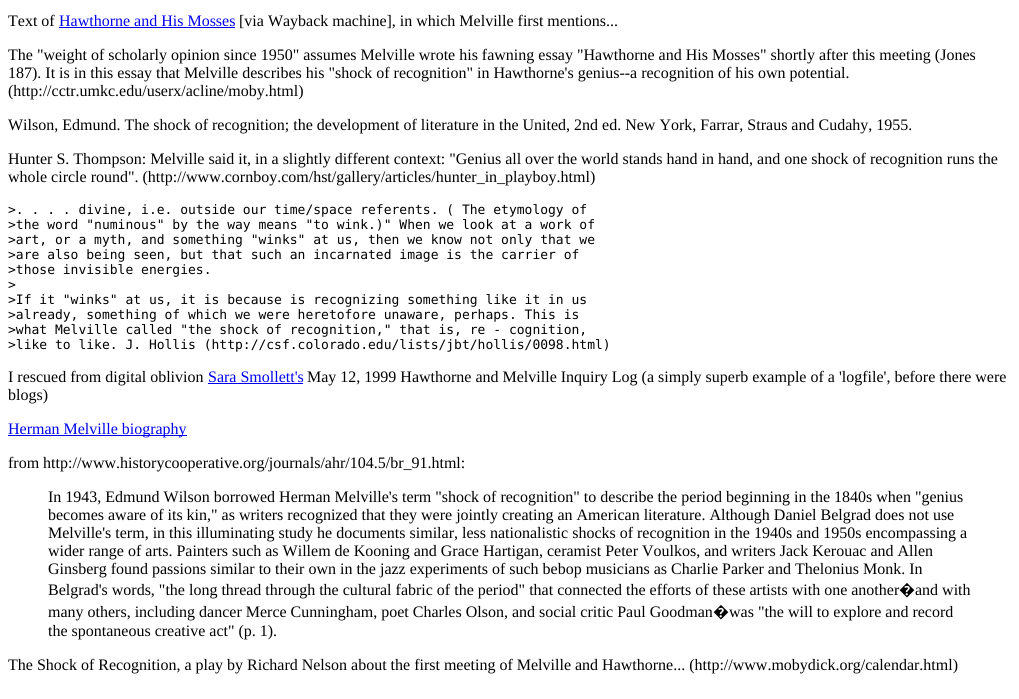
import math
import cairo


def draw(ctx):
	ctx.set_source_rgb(1, 1, 1)
	ctx.paint()
	ctx.select_font_face('Liberation Serif')
	ctx.set_font_size(16)
	ctx.set_source_rgb(0, 0, 0)
	ctx.move_to(8, 26)
	ctx.show_text('Text of')
	ctx.set_source_rgb(0, 0, 0.933)
	ctx.move_to(59, 26)
	ctx.show_text('Hawthorne and His Mosses')
	ctx.rectangle(59, 27, 176, 1)
	ctx.fill()
	ctx.set_source_rgb(0, 0, 0)
	for x, y, s in [
		(239, 26, '[via Wayback machine], in which Melville first mentions...'),
		(8, 60, 'The "weight of scholarly opinion since 1950" assumes Melville wrote his fawning essay "Hawthorne and His Mosses" shortly after this meeting (Jones'),
		(8, 78, '187). It is in this essay that Melville describes his "shock of recognition" in Hawthorne\'s genius--a recognition of his own potential.'),
		(8, 96, '(http://cctr.umkc.edu/userx/acline/moby.html)'),
		(8, 130, 'Wilson, Edmund. The shock of recognition; the development of literature in the United, 2nd ed. New York, Farrar, Straus and Cudahy, 1955.'),
		(8, 164, 'Hunter S. Thompson: Melville said it, in a slightly different context: "Genius all over the world stands hand in hand, and one shock of recognition runs the'),
		(8, 182, 'whole circle round". (http://www.cornboy.com/hst/gallery/articles/hunter_in_playboy.html)'),
	]:
		ctx.move_to(x, y)
		ctx.show_text(s)
	ctx.select_font_face('DejaVu Sans Mono')
	ctx.set_font_size(13)
	for x, y, s in [
		(8, 214, '>. . . . divine, i.e. outside our time/space referents. ( The etymology of'),
		(8, 229, '>the word "numinous" by the way means "to wink.)" When we look at a work of'),
		(8, 244, '>art, or a myth, and something "winks" at us, then we know not only that we'),
		(8, 259, '>are also being seen, but that such an incarnated image is the carrier of'),
		(8, 274, '>those invisible energies.'),
		(8, 289, '>'),
		(8, 304, '>If it "winks" at us, it is because is recognizing something like it in us'),
		(8, 319, '>already, something of which we were heretofore unaware, perhaps. This is'),
		(8, 334, '>what Melville called "the shock of recognition," that is, re - cognition,'),
		(8, 349, '>like to like. J. Hollis (http://csf.colorado.edu/lists/jbt/hollis/0098.html)'),
	]:
		ctx.move_to(x, y)
		ctx.show_text(s)
	ctx.select_font_face('Liberation Serif')
	ctx.set_font_size(16)
	ctx.move_to(8, 382)
	ctx.show_text('I rescued from digital oblivion')
	ctx.set_source_rgb(0, 0, 0.933)
	ctx.move_to(208, 382)
	ctx.show_text('Sara Smollett\'s')
	ctx.rectangle(208, 383, 95, 1)
	ctx.fill()
	ctx.set_source_rgb(0, 0, 0)
	ctx.move_to(307, 382)
	ctx.show_text('May 12, 1999 Hawthorne and Melville Inquiry Log (a simply superb example of a \'logfile\', before there were')
	ctx.move_to(8, 400)
	ctx.show_text('blogs)')
	ctx.set_source_rgb(0, 0, 0.933)
	ctx.rectangle(8, 435, 179, 1)
	ctx.fill()
	ctx.move_to(8, 434)
	ctx.show_text('Herman Melville biography')
	ctx.set_source_rgb(0, 0, 0)
	for x, y, s in [
		(8, 468, 'from http://www.historycooperative.org/journals/ahr/104.5/br_91.html:'),
		(48, 502, 'In 1943, Edmund Wilson borrowed Herman Melville\'s term "shock of recognition" to describe the period beginning in the 1840s when "genius'),
		(48, 520, 'becomes aware of its kin," as writers recognized that they were jointly creating an American literature. Although Daniel Belgrad does not use'),
		(48, 538, 'Melville\'s term, in this illuminating study he documents similar, less nationalistic shocks of recognition in the 1940s and 1950s encompassing a'),
		(48, 556, 'wider range of arts. Painters such as Willem de Kooning and Grace Hartigan, ceramist Peter Voulkos, and writers Jack Kerouac and Allen'),
		(48, 574, 'Ginsberg found passions similar to their own in the jazz experiments of such bebop musicians as Charlie Parker and Thelonius Monk. In'),
		(48, 595, 'Belgrad\'s words, "the long thread through the cultural fabric of the period" that connected the efforts of these artists with one another'),
	]:
		ctx.move_to(x, y)
		ctx.show_text(s)
	ctx.select_font_face('Noto Sans')
	ctx.move_to(899, 595)
	ctx.show_text('�')
	ctx.select_font_face('Liberation Serif')
	ctx.move_to(915, 595)
	ctx.show_text('and with')
	ctx.move_to(48, 617)
	ctx.show_text('many others, including dancer Merce Cunningham, poet Charles Olson, and social critic Paul Goodman')
	ctx.select_font_face('Noto Sans')
	ctx.move_to(713, 617)
	ctx.show_text('�')
	ctx.select_font_face('Liberation Serif')
	for x, y, s in [
		(729, 617, 'was "the will to explore and record'),
		(48, 636, 'the spontaneous creative act" (p. 1).'),
		(8, 670, 'The Shock of Recognition, a play by Richard Nelson about the first meeting of Melville and Hawthorne... (http://www.mobydick.org/calendar.html)'),
	]:
		ctx.move_to(x, y)
		ctx.show_text(s)


surface = cairo.ImageSurface(cairo.FORMAT_RGB24, 1019, 699)
ctx = cairo.Context(surface)
options = cairo.FontOptions()
options.set_hint_metrics(cairo.HINT_METRICS_OFF)
options.set_hint_style(cairo.HINT_STYLE_NONE)
ctx.set_font_options(options)
ctx.set_miter_limit(4)
draw(ctx)
surface.write_to_png('image.png')
